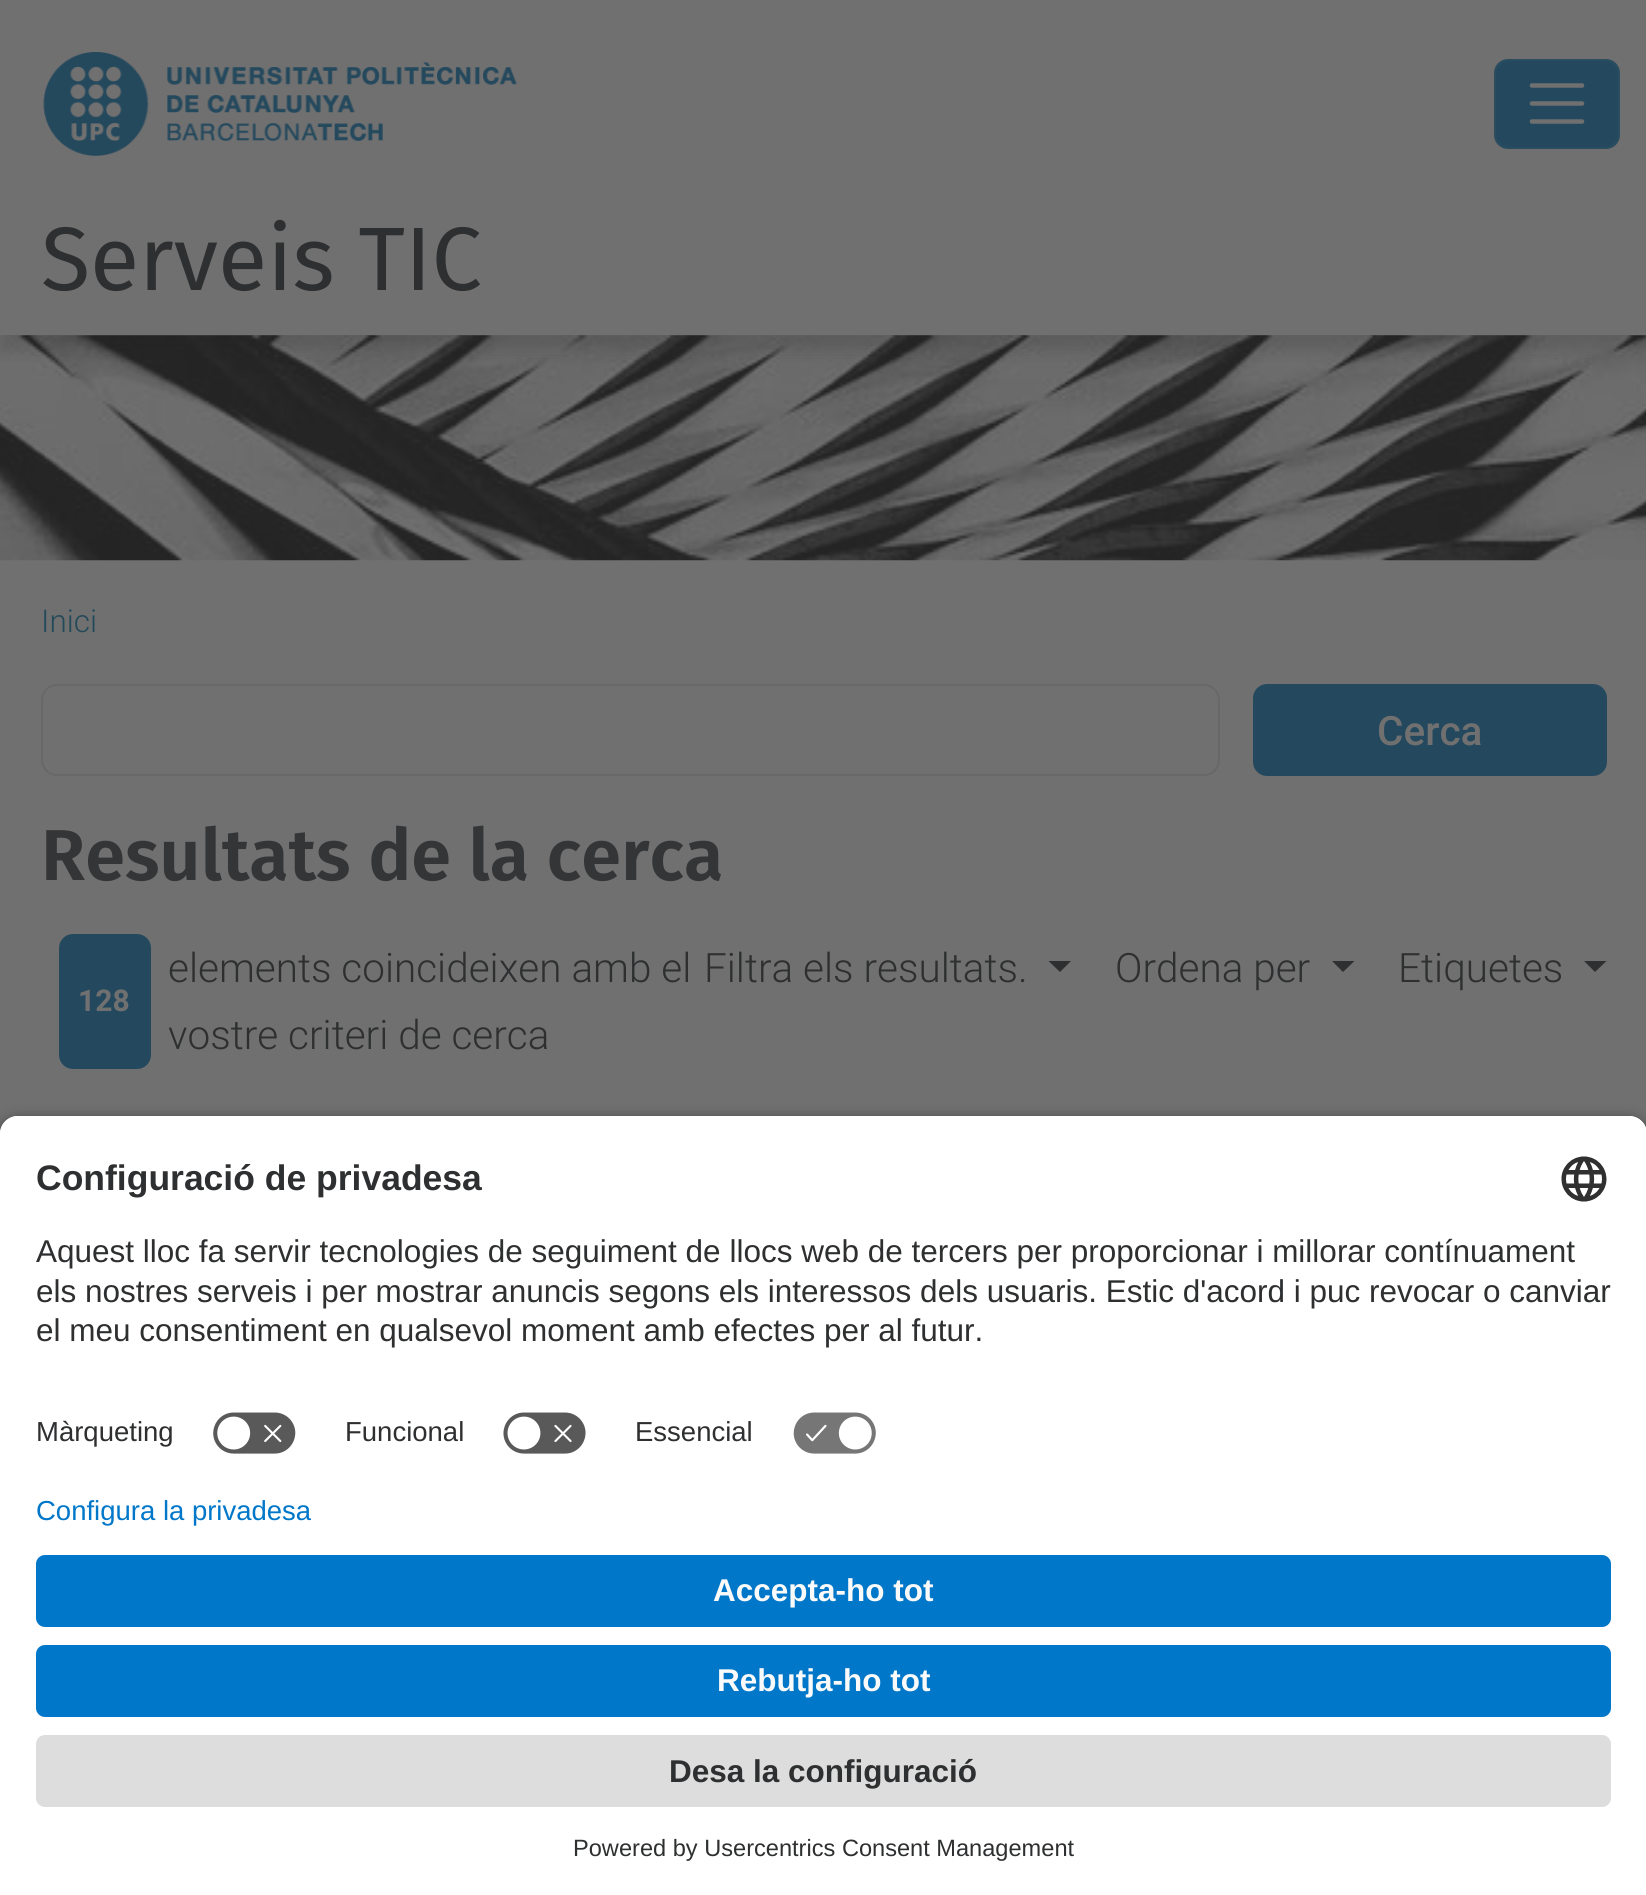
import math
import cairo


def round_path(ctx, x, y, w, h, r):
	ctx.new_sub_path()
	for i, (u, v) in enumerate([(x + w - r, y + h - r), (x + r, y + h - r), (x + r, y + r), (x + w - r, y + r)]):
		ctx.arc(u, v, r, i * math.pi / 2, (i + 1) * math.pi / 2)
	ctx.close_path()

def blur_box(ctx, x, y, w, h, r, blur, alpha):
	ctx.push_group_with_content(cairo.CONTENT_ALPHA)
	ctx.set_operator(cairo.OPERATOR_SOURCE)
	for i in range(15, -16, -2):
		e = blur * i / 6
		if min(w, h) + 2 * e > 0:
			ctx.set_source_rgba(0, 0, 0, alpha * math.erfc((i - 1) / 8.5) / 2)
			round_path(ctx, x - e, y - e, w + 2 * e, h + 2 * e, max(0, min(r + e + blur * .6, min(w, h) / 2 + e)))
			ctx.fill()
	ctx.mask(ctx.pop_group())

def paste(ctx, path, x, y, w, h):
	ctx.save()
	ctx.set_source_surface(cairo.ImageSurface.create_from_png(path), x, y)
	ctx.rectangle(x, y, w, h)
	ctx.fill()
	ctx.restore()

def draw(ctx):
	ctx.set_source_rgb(0.439, 0.439, 0.439)
	ctx.paint()
	paste(ctx, 'media/1.png', 43, 52, 475, 104)
	ctx.set_source_rgb(0.141, 0.286, 0.369)
	round_path(ctx, 1494, 59, 126, 90, 14)
	ctx.fill()
	round_path(ctx, 1495, 60, 124, 88, 13)
	ctx.set_source_rgba(0.439, 0.439, 0.439, 0.1)
	ctx.stroke()
	ctx.new_path()
	ctx.move_to(1532, 85.5)
	ctx.line_to(1582, 85.5)
	ctx.move_to(1532, 103.5)
	ctx.line_to(1582, 103.5)
	ctx.move_to(1532, 121.5)
	ctx.line_to(1582, 121.5)
	ctx.set_source_rgb(0.439, 0.439, 0.439)
	ctx.set_line_width(4.5)
	ctx.set_line_cap(cairo.LINE_CAP_ROUND)
	ctx.stroke()
	paste(ctx, 'media/2.png', 0, 335, 1646, 226)
	ctx.save()
	ctx.rectangle(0, 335, 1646, 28)
	ctx.clip()
	ctx.set_source_rgb(0.141, 0.141, 0.141)
	blur_box(ctx, 0, 223, 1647, 128, 0, 9, 0.2)
	ctx.restore()
	ctx.select_font_face('Fira Sans')
	ctx.set_font_size(90)
	ctx.set_source_rgb(0.18, 0.184, 0.188)
	ctx.move_to(41, 290)
	ctx.show_text('Serveis TIC')
	ctx.select_font_face('Roboto Light')
	ctx.set_font_size(31.5)
	ctx.set_source_rgb(0.141, 0.286, 0.349)
	ctx.move_to(41, 632)
	ctx.show_text('Inici')
	round_path(ctx, 42, 685, 1177, 90, 15)
	ctx.set_source_rgb(0.4, 0.408, 0.412)
	ctx.set_line_width(2)
	ctx.set_line_cap(cairo.LINE_CAP_BUTT)
	ctx.stroke()
	ctx.set_source_rgb(0.141, 0.286, 0.369)
	round_path(ctx, 1254, 685, 352, 90, 13)
	ctx.fill_preserve()
	ctx.stroke()
	ctx.select_font_face('Roboto Medium')
	ctx.set_font_size(40.5)
	ctx.set_source_rgb(0.439, 0.439, 0.439)
	ctx.move_to(1377, 745)
	ctx.show_text('Cerca')
	ctx.select_font_face('Fira Sans SemiBold')
	ctx.set_font_size(72)
	ctx.set_source_rgb(0.2, 0.208, 0.216)
	ctx.move_to(41, 880)
	ctx.show_text('Resultats de la cerca')
	ctx.select_font_face('Roboto Light')
	ctx.set_font_size(40.5)
	ctx.set_source_rgb(0.18, 0.184, 0.188)
	ctx.move_to(168, 982)
	ctx.show_text('elements coincideixen amb el')
	ctx.set_source_rgb(0.141, 0.286, 0.369)
	round_path(ctx, 59, 934, 92, 135, 14)
	ctx.fill()
	ctx.select_font_face('Roboto', cairo.FONT_SLANT_NORMAL, cairo.FONT_WEIGHT_BOLD)
	ctx.set_font_size(30)
	ctx.set_source_rgb(0.439, 0.439, 0.439)
	ctx.move_to(78, 1011)
	ctx.show_text('128')
	ctx.select_font_face('Roboto Light')
	ctx.set_font_size(40.5)
	ctx.set_source_rgb(0.18, 0.184, 0.188)
	ctx.move_to(168, 1049)
	ctx.show_text('vostre criteri de cerca')
	ctx.move_to(704, 982)
	ctx.show_text('Filtra els resultats.')
	ctx.new_path()
	ctx.move_to(1048.5, 961)
	ctx.line_to(1071, 961)
	ctx.line_to(1060, 972)
	ctx.close_path()
	ctx.fill()
	ctx.move_to(1115, 982)
	ctx.show_text('Ordena per')
	ctx.new_path()
	ctx.move_to(1332, 961)
	ctx.line_to(1354.5, 961)
	ctx.line_to(1343, 972)
	ctx.close_path()
	ctx.fill()
	ctx.move_to(1398, 982)
	ctx.show_text('Etiquetes')
	ctx.new_path()
	ctx.move_to(1584, 961)
	ctx.line_to(1606.5, 961)
	ctx.line_to(1595, 972)
	ctx.close_path()
	ctx.fill()
	ctx.set_source_rgb(0, 0, 0)
	blur_box(ctx, 0, 1123, 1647, 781, 18, 8, 0.8)
	ctx.set_source_rgb(1, 1, 1)
	ctx.new_path()
	ctx.move_to(18, 1116)
	ctx.line_to(1629, 1116)
	ctx.curve_to(1639, 1116, 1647, 1124, 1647, 1134)
	ctx.line_to(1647, 1496)
	ctx.line_to(0, 1496)
	ctx.line_to(0, 1134)
	ctx.curve_to(0, 1124, 8, 1116, 18, 1116)
	ctx.close_path()
	ctx.fill()
	ctx.new_path()
	ctx.move_to(18, 1116)
	ctx.line_to(1629, 1116)
	ctx.curve_to(1639, 1116, 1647, 1124, 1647, 1134)
	ctx.line_to(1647, 1397)
	ctx.line_to(0, 1397)
	ctx.line_to(0, 1134)
	ctx.curve_to(0, 1124, 8, 1116, 18, 1116)
	ctx.close_path()
	ctx.fill()
	ctx.select_font_face('Liberation Sans', cairo.FONT_SLANT_NORMAL, cairo.FONT_WEIGHT_BOLD)
	ctx.set_font_size(35.5)
	ctx.set_source_rgb(0.18, 0.184, 0.188)
	ctx.move_to(36, 1190)
	ctx.show_text('Configuració de privadesa')
	paste(ctx, 'media/3.png', 1561, 1156, 46, 46)
	ctx.select_font_face('Liberation Sans')
	ctx.set_font_size(31.5)
	for x, y, s in [
		(36, 1262, 'Aquest lloc fa servir tecnologies de seguiment de llocs web de tercers per proporcionar i millorar contínuament'),
		(36, 1302, 'els nostres serveis i per mostrar anuncis segons els interessos dels usuaris. Estic d\'acord i puc revocar o canviar'),
		(36, 1341, 'el meu consentiment en qualsevol moment amb efectes per al futur.'),
	]:
		ctx.move_to(x, y)
		ctx.show_text(s)
	ctx.set_font_size(27.5)
	ctx.move_to(36, 1441)
	ctx.show_text('Màrqueting')
	paste(ctx, 'media/4.png', 213, 1412, 83, 42)
	ctx.move_to(345, 1441)
	ctx.show_text('Funcional')
	paste(ctx, 'media/5.png', 503, 1412, 83, 42)
	ctx.move_to(635, 1441)
	ctx.show_text('Essencial')
	paste(ctx, 'media/6.png', 793, 1412, 83, 42)
	ctx.set_source_rgb(1, 1, 1)
	ctx.rectangle(0, 1496, 1646, 399)
	ctx.fill()
	ctx.set_source_rgb(0, 0.467, 0.784)
	ctx.move_to(36, 1520)
	ctx.show_text('Configura la privadesa')
	round_path(ctx, 36, 1555, 1575, 72, 9)
	ctx.fill()
	ctx.select_font_face('Liberation Sans', cairo.FONT_SLANT_NORMAL, cairo.FONT_WEIGHT_BOLD)
	ctx.set_font_size(31.5)
	ctx.set_source_rgb(0.98, 0.98, 0.98)
	ctx.move_to(713, 1601)
	ctx.show_text('Accepta-ho tot')
	ctx.set_source_rgb(0, 0.467, 0.784)
	round_path(ctx, 36, 1645, 1575, 72, 9)
	ctx.fill()
	ctx.set_source_rgb(0.98, 0.98, 0.98)
	ctx.move_to(717, 1691)
	ctx.show_text('Rebutja-ho tot')
	ctx.set_source_rgb(0.867, 0.867, 0.867)
	round_path(ctx, 36, 1735, 1575, 72, 9)
	ctx.fill()
	ctx.set_source_rgb(0.18, 0.184, 0.188)
	ctx.move_to(669, 1782)
	ctx.show_text('Desa la configuració')
	ctx.select_font_face('Liberation Sans')
	ctx.set_font_size(23.6)
	ctx.move_to(573, 1856)
	ctx.show_text('Powered by Usercentrics Consent Management')


surface = cairo.ImageSurface(cairo.FORMAT_RGB24, 1646, 1895)
ctx = cairo.Context(surface)
options = cairo.FontOptions()
options.set_hint_metrics(cairo.HINT_METRICS_OFF)
options.set_hint_style(cairo.HINT_STYLE_NONE)
ctx.set_font_options(options)
ctx.set_miter_limit(4)
draw(ctx)
surface.write_to_png('image.png')
